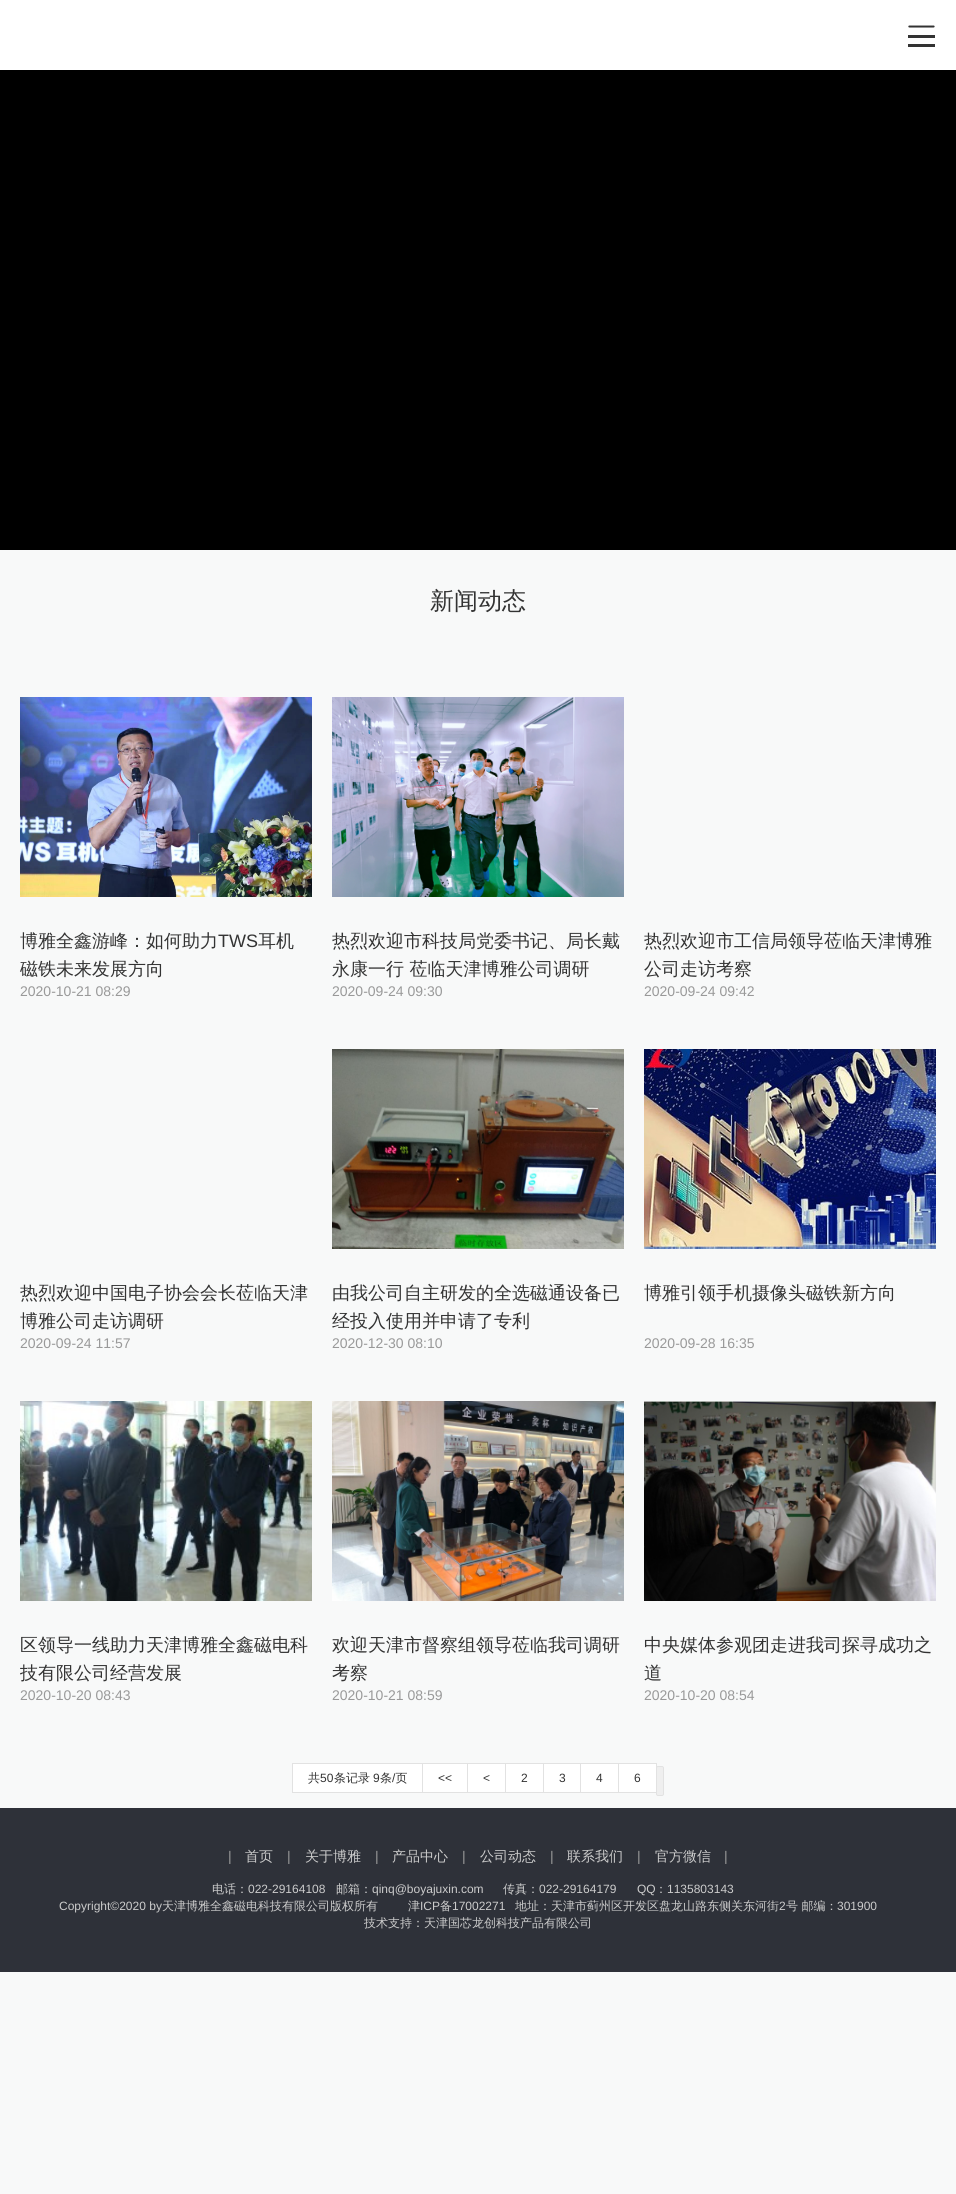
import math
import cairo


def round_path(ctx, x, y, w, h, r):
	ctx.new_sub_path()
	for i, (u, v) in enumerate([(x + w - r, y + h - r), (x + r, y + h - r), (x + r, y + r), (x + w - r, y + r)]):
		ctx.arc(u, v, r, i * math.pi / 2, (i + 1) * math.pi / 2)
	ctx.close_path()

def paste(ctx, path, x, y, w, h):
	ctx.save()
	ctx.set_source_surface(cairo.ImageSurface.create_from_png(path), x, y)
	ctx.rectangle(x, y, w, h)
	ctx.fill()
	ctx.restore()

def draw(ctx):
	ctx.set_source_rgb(0.969, 0.973, 0.976)
	ctx.paint()
	ctx.set_source_rgb(1, 1, 1)
	ctx.rectangle(0, 0, 956, 70)
	ctx.fill()
	ctx.set_source_rgb(0.2, 0.2, 0.2)
	ctx.new_path()
	ctx.move_to(933.5, 27.5)
	ctx.line_to(909.5, 27.5)
	ctx.curve_to(908, 27.5, 908, 26, 909, 25.5)
	ctx.line_to(933.5, 25.5)
	ctx.curve_to(935, 25.5, 935, 27.5, 933.5, 27.5)
	ctx.close_path()
	ctx.fill()
	ctx.rectangle(908, 35, 27, 3)
	ctx.rectangle(908, 44, 27, 3)
	ctx.fill()
	ctx.set_source_rgb(0, 0, 0)
	ctx.rectangle(0, 70, 956, 480)
	ctx.fill()
	ctx.select_font_face('WenQuanYi Zen Hei Medium')
	ctx.set_font_size(24)
	ctx.set_source_rgb(0.2, 0.2, 0.2)
	ctx.move_to(430, 609)
	ctx.show_text('新闻动态')
	paste(ctx, 'media/1.png', 20, 697, 292, 200)
	ctx.set_font_size(18)
	ctx.move_to(20, 947)
	ctx.show_text('博雅全鑫游峰：如何助力')
	ctx.select_font_face('Liberation Sans')
	ctx.move_to(218, 947)
	ctx.show_text('TWS')
	ctx.select_font_face('WenQuanYi Zen Hei Medium')
	ctx.move_to(258, 947)
	ctx.show_text('耳机')
	ctx.move_to(20, 975)
	ctx.show_text('磁铁未来发展方向')
	ctx.select_font_face('Liberation Sans')
	ctx.set_font_size(14)
	ctx.set_source_rgb(0.6, 0.6, 0.6)
	ctx.move_to(20, 996)
	ctx.show_text('2020-10-21 08:29')
	paste(ctx, 'media/2.png', 332, 697, 292, 200)
	ctx.select_font_face('WenQuanYi Zen Hei Medium')
	ctx.set_font_size(18)
	ctx.set_source_rgb(0.2, 0.2, 0.2)
	ctx.move_to(332, 947)
	ctx.show_text('热烈欢迎市科技局党委书记、局长戴')
	ctx.move_to(332, 975)
	ctx.show_text('永康一行 莅临天津博雅公司调研')
	ctx.select_font_face('Liberation Sans')
	ctx.set_font_size(14)
	ctx.set_source_rgb(0.6, 0.6, 0.6)
	ctx.move_to(332, 996)
	ctx.show_text('2020-09-24 09:30')
	ctx.select_font_face('WenQuanYi Zen Hei Medium')
	ctx.set_font_size(18)
	ctx.set_source_rgb(0.2, 0.2, 0.2)
	ctx.move_to(644, 947)
	ctx.show_text('热烈欢迎市工信局领导莅临天津博雅')
	ctx.move_to(644, 975)
	ctx.show_text('公司走访考察')
	ctx.select_font_face('Liberation Sans')
	ctx.set_font_size(14)
	ctx.set_source_rgb(0.6, 0.6, 0.6)
	ctx.move_to(644, 996)
	ctx.show_text('2020-09-24 09:42')
	ctx.select_font_face('WenQuanYi Zen Hei Medium')
	ctx.set_font_size(18)
	ctx.set_source_rgb(0.2, 0.2, 0.2)
	ctx.move_to(20, 1299)
	ctx.show_text('热烈欢迎中国电子协会会长莅临天津')
	ctx.move_to(20, 1327)
	ctx.show_text('博雅公司走访调研')
	ctx.select_font_face('Liberation Sans')
	ctx.set_font_size(14)
	ctx.set_source_rgb(0.6, 0.6, 0.6)
	ctx.move_to(20, 1348)
	ctx.show_text('2020-09-24 11:57')
	paste(ctx, 'media/3.png', 332, 1049, 292, 200)
	ctx.select_font_face('WenQuanYi Zen Hei Medium')
	ctx.set_font_size(18)
	ctx.set_source_rgb(0.2, 0.2, 0.2)
	ctx.move_to(332, 1299)
	ctx.show_text('由我公司自主研发的全选磁通设备已')
	ctx.move_to(332, 1327)
	ctx.show_text('经投入使用并申请了专利')
	ctx.select_font_face('Liberation Sans')
	ctx.set_font_size(14)
	ctx.set_source_rgb(0.6, 0.6, 0.6)
	ctx.move_to(332, 1348)
	ctx.show_text('2020-12-30 08:10')
	paste(ctx, 'media/4.png', 644, 1049, 292, 200)
	ctx.select_font_face('WenQuanYi Zen Hei Medium')
	ctx.set_font_size(18)
	ctx.set_source_rgb(0.2, 0.2, 0.2)
	ctx.move_to(644, 1299)
	ctx.show_text('博雅引领手机摄像头磁铁新方向')
	ctx.select_font_face('Liberation Sans')
	ctx.set_font_size(14)
	ctx.set_source_rgb(0.6, 0.6, 0.6)
	ctx.move_to(644, 1348)
	ctx.show_text('2020-09-28 16:35')
	paste(ctx, 'media/5.png', 20, 1401, 292, 200)
	ctx.select_font_face('WenQuanYi Zen Hei Medium')
	ctx.set_font_size(18)
	ctx.set_source_rgb(0.2, 0.2, 0.2)
	ctx.move_to(20, 1651)
	ctx.show_text('区领导一线助力天津博雅全鑫磁电科')
	ctx.move_to(20, 1679)
	ctx.show_text('技有限公司经营发展')
	ctx.select_font_face('Liberation Sans')
	ctx.set_font_size(14)
	ctx.set_source_rgb(0.6, 0.6, 0.6)
	ctx.move_to(20, 1700)
	ctx.show_text('2020-10-20 08:43')
	paste(ctx, 'media/6.png', 332, 1401, 292, 200)
	ctx.select_font_face('WenQuanYi Zen Hei Medium')
	ctx.set_font_size(18)
	ctx.set_source_rgb(0.2, 0.2, 0.2)
	ctx.move_to(332, 1651)
	ctx.show_text('欢迎天津市督察组领导莅临我司调研')
	ctx.move_to(332, 1679)
	ctx.show_text('考察')
	ctx.select_font_face('Liberation Sans')
	ctx.set_font_size(14)
	ctx.set_source_rgb(0.6, 0.6, 0.6)
	ctx.move_to(332, 1700)
	ctx.show_text('2020-10-21 08:59')
	paste(ctx, 'media/7.png', 644, 1401, 292, 200)
	ctx.select_font_face('WenQuanYi Zen Hei Medium')
	ctx.set_font_size(18)
	ctx.set_source_rgb(0.2, 0.2, 0.2)
	ctx.move_to(644, 1651)
	ctx.show_text('中央媒体参观团走进我司探寻成功之')
	ctx.move_to(644, 1679)
	ctx.show_text('道')
	ctx.select_font_face('Liberation Sans')
	ctx.set_font_size(14)
	ctx.set_source_rgb(0.6, 0.6, 0.6)
	ctx.move_to(644, 1700)
	ctx.show_text('2020-10-20 08:54')
	ctx.set_source_rgb(1, 1, 1)
	ctx.rectangle(292.5, 1763.5, 130, 29)
	ctx.fill_preserve()
	ctx.set_source_rgb(0.886, 0.886, 0.886)
	ctx.set_line_width(1)
	ctx.stroke()
	ctx.select_font_face('WenQuanYi Zen Hei Medium')
	ctx.set_font_size(12)
	ctx.set_source_rgb(0.2, 0.2, 0.2)
	ctx.move_to(308, 1782)
	ctx.show_text('共')
	ctx.select_font_face('Liberation Sans')
	ctx.move_to(320, 1782)
	ctx.show_text('50')
	ctx.select_font_face('WenQuanYi Zen Hei Medium')
	ctx.move_to(334, 1782)
	ctx.show_text('条记录')
	ctx.select_font_face('Liberation Sans')
	ctx.move_to(373, 1782)
	ctx.show_text('9')
	ctx.select_font_face('WenQuanYi Zen Hei Medium')
	ctx.move_to(380, 1782)
	ctx.show_text('条 页')
	ctx.select_font_face('Liberation Sans')
	ctx.move_to(392, 1782)
	ctx.show_text('/')
	ctx.set_source_rgb(1, 1, 1)
	ctx.rectangle(422.5, 1763.5, 45, 29)
	ctx.fill_preserve()
	ctx.set_source_rgb(0.886, 0.886, 0.886)
	ctx.stroke()
	ctx.set_source_rgb(0.2, 0.2, 0.2)
	ctx.move_to(438, 1782)
	ctx.show_text('<<')
	ctx.set_source_rgb(1, 1, 1)
	ctx.rectangle(467.5, 1763.5, 38, 29)
	ctx.fill_preserve()
	ctx.set_source_rgb(0.886, 0.886, 0.886)
	ctx.stroke()
	ctx.set_source_rgb(0.2, 0.2, 0.2)
	ctx.move_to(483, 1782)
	ctx.show_text('<')
	ctx.set_source_rgb(1, 1, 1)
	ctx.rectangle(505.5, 1763.5, 38, 29)
	ctx.fill_preserve()
	ctx.set_source_rgb(0.886, 0.886, 0.886)
	ctx.stroke()
	ctx.set_source_rgb(0.2, 0.2, 0.2)
	ctx.move_to(521, 1782)
	ctx.show_text('2')
	ctx.set_source_rgb(1, 1, 1)
	ctx.rectangle(543.5, 1763.5, 37, 29)
	ctx.fill_preserve()
	ctx.set_source_rgb(0.886, 0.886, 0.886)
	ctx.stroke()
	ctx.set_source_rgb(0.2, 0.2, 0.2)
	ctx.move_to(559, 1782)
	ctx.show_text('3')
	ctx.set_source_rgb(1, 1, 1)
	ctx.rectangle(580.5, 1763.5, 38, 29)
	ctx.fill_preserve()
	ctx.set_source_rgb(0.886, 0.886, 0.886)
	ctx.stroke()
	ctx.set_source_rgb(0.2, 0.2, 0.2)
	ctx.move_to(596, 1782)
	ctx.show_text('4')
	ctx.set_source_rgb(1, 1, 1)
	ctx.rectangle(618.5, 1763.5, 38, 29)
	ctx.fill_preserve()
	ctx.set_source_rgb(0.886, 0.886, 0.886)
	ctx.stroke()
	ctx.set_source_rgb(0.2, 0.2, 0.2)
	ctx.move_to(634, 1782)
	ctx.show_text('6')
	ctx.set_source_rgb(0.937, 0.937, 0.937)
	round_path(ctx, 656.5, 1766.5, 7, 29, 1.5)
	ctx.fill_preserve()
	ctx.set_source_rgb(0.886, 0.886, 0.886)
	ctx.stroke()
	ctx.set_source_rgb(0.18, 0.192, 0.224)
	ctx.rectangle(0, 1808, 956, 164)
	ctx.fill()
	ctx.set_font_size(14)
	ctx.set_source_rgb(0.6, 0.6, 0.6)
	ctx.move_to(228, 1861)
	ctx.show_text('|')
	ctx.select_font_face('WenQuanYi Zen Hei Medium')
	ctx.set_source_rgb(0.8, 0.8, 0.8)
	ctx.move_to(245, 1861)
	ctx.show_text('首页')
	ctx.select_font_face('Liberation Sans')
	ctx.set_source_rgb(0.6, 0.6, 0.6)
	ctx.move_to(287, 1861)
	ctx.show_text('|')
	ctx.select_font_face('WenQuanYi Zen Hei Medium')
	ctx.set_source_rgb(0.8, 0.8, 0.8)
	ctx.move_to(305, 1861)
	ctx.show_text('关于博雅')
	ctx.select_font_face('Liberation Sans')
	ctx.set_source_rgb(0.6, 0.6, 0.6)
	ctx.move_to(375, 1861)
	ctx.show_text('|')
	ctx.select_font_face('WenQuanYi Zen Hei Medium')
	ctx.set_source_rgb(0.8, 0.8, 0.8)
	ctx.move_to(392, 1861)
	ctx.show_text('产品中心')
	ctx.select_font_face('Liberation Sans')
	ctx.set_source_rgb(0.6, 0.6, 0.6)
	ctx.move_to(462, 1861)
	ctx.show_text('|')
	ctx.select_font_face('WenQuanYi Zen Hei Medium')
	ctx.set_source_rgb(0.8, 0.8, 0.8)
	ctx.move_to(480, 1861)
	ctx.show_text('公司动态')
	ctx.select_font_face('Liberation Sans')
	ctx.set_source_rgb(0.6, 0.6, 0.6)
	ctx.move_to(550, 1861)
	ctx.show_text('|')
	ctx.select_font_face('WenQuanYi Zen Hei Medium')
	ctx.set_source_rgb(0.8, 0.8, 0.8)
	ctx.move_to(567, 1861)
	ctx.show_text('联系我们')
	ctx.select_font_face('Liberation Sans')
	ctx.set_source_rgb(0.6, 0.6, 0.6)
	ctx.move_to(637, 1861)
	ctx.show_text('|')
	ctx.select_font_face('WenQuanYi Zen Hei Medium')
	ctx.set_source_rgb(0.8, 0.8, 0.8)
	ctx.move_to(655, 1861)
	ctx.show_text('官方微信')
	ctx.select_font_face('Liberation Sans')
	ctx.set_source_rgb(0.6, 0.6, 0.6)
	ctx.move_to(724, 1861)
	ctx.show_text('|')
	ctx.select_font_face('WenQuanYi Zen Hei Medium')
	ctx.set_font_size(12)
	ctx.set_source_rgb(0.8, 0.8, 0.8)
	ctx.move_to(212, 1893)
	ctx.show_text('电话：')
	ctx.select_font_face('Liberation Sans')
	ctx.move_to(248, 1893)
	ctx.show_text('022-29164108')
	ctx.select_font_face('WenQuanYi Zen Hei Medium')
	ctx.move_to(336, 1893)
	ctx.show_text('邮箱：')
	ctx.select_font_face('Liberation Sans')
	ctx.move_to(372, 1893)
	ctx.show_text('qinq@boyajuxin.com')
	ctx.select_font_face('WenQuanYi Zen Hei Medium')
	ctx.move_to(503, 1893)
	ctx.show_text('传真：')
	ctx.select_font_face('Liberation Sans')
	ctx.move_to(539, 1893)
	ctx.show_text('022-29164179')
	ctx.move_to(637, 1893)
	ctx.show_text('QQ')
	ctx.select_font_face('WenQuanYi Zen Hei Medium')
	ctx.move_to(655, 1893)
	ctx.show_text('：')
	ctx.select_font_face('Liberation Sans')
	ctx.move_to(667, 1893)
	ctx.show_text('1135803143')
	ctx.move_to(59, 1910)
	ctx.show_text('Copyright©2020 by')
	ctx.select_font_face('WenQuanYi Zen Hei Medium')
	ctx.move_to(162, 1910)
	ctx.show_text('天津博雅全鑫磁电科技有限公司版权所有')
	ctx.move_to(408, 1910)
	ctx.show_text('津')
	ctx.select_font_face('Liberation Sans')
	ctx.move_to(420, 1910)
	ctx.show_text('ICP')
	ctx.select_font_face('WenQuanYi Zen Hei Medium')
	ctx.move_to(440, 1910)
	ctx.show_text('备')
	ctx.select_font_face('Liberation Sans')
	ctx.move_to(452, 1910)
	ctx.show_text('17002271')
	ctx.select_font_face('WenQuanYi Zen Hei Medium')
	ctx.move_to(515, 1910)
	ctx.show_text('地址：天津市蓟州区开发区盘龙山路东侧关东河街')
	ctx.select_font_face('Liberation Sans')
	ctx.move_to(779, 1910)
	ctx.show_text('2')
	ctx.select_font_face('WenQuanYi Zen Hei Medium')
	ctx.move_to(786, 1910)
	ctx.show_text('号 邮编：')
	ctx.select_font_face('Liberation Sans')
	ctx.move_to(837, 1910)
	ctx.show_text('301900')
	ctx.select_font_face('WenQuanYi Zen Hei Medium')
	ctx.move_to(364, 1927)
	ctx.show_text('技术支持：天津国芯龙创科技产品有限公司')


surface = cairo.ImageSurface(cairo.FORMAT_RGB24, 956, 2194)
ctx = cairo.Context(surface)
options = cairo.FontOptions()
options.set_hint_metrics(cairo.HINT_METRICS_OFF)
options.set_hint_style(cairo.HINT_STYLE_NONE)
ctx.set_font_options(options)
ctx.set_miter_limit(4)
draw(ctx)
surface.write_to_png('image.png')
